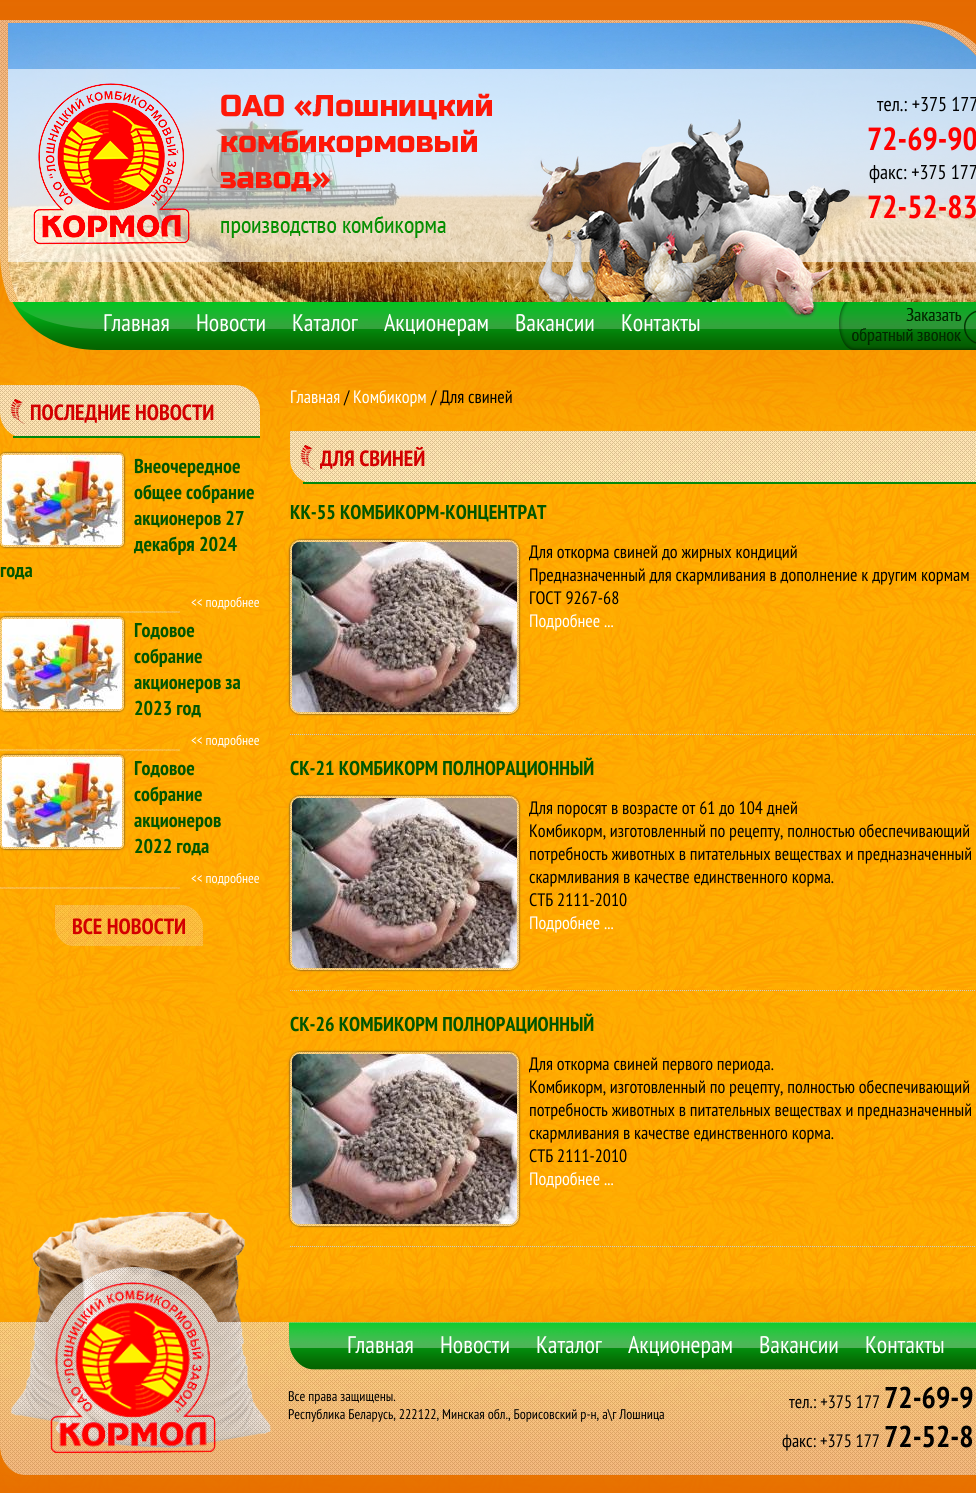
import math
import cairo


def round_path(ctx, x, y, w, h, r):
	ctx.new_sub_path()
	for i, (u, v) in enumerate([(x + w - r, y + h - r), (x + r, y + h - r), (x + r, y + r), (x + w - r, y + r)]):
		ctx.arc(u, v, r, i * math.pi / 2, (i + 1) * math.pi / 2)
	ctx.close_path()

def blur_box(ctx, x, y, w, h, r, blur, alpha):
	ctx.push_group_with_content(cairo.CONTENT_ALPHA)
	ctx.set_operator(cairo.OPERATOR_SOURCE)
	for i in range(15, -16, -2):
		e = blur * i / 6
		if min(w, h) + 2 * e > 0:
			ctx.set_source_rgba(0, 0, 0, alpha * math.erfc((i - 1) / 8.5) / 2)
			round_path(ctx, x - e, y - e, w + 2 * e, h + 2 * e, max(0, min(r + e + blur * .6, min(w, h) / 2 + e)))
			ctx.fill()
	ctx.mask(ctx.pop_group())

def paste(ctx, path, x, y, w, h):
	ctx.save()
	ctx.set_source_surface(cairo.ImageSurface.create_from_png(path), x, y)
	ctx.rectangle(x, y, w, h)
	ctx.fill()
	ctx.restore()

def draw(ctx):
	ctx.set_source_rgb(1, 1, 1)
	ctx.paint()
	paste(ctx, 'media/1.png', 0, 6, 976, 1487)
	paste(ctx, 'media/2.png', 0, 0, 976, 461)
	paste(ctx, 'media/4.png', 8, 23, 968, 279)
	paste(ctx, 'media/3.png', 0, 20, 976, 282)
	paste(ctx, 'media/5.png', 33, 83, 157, 162)
	paste(ctx, 'media/6.png', 220, 93, 630, 209)
	ctx.select_font_face('PT Sans Narrow')
	ctx.set_font_size(20)
	ctx.set_source_rgb(0, 0, 0)
	ctx.move_to(877, 111)
	ctx.show_text('тел.: +375 177')
	ctx.select_font_face('PT Sans Narrow', cairo.FONT_SLANT_NORMAL, cairo.FONT_WEIGHT_BOLD)
	ctx.set_font_size(32)
	ctx.set_source_rgb(1, 0, 0)
	ctx.move_to(867, 150)
	ctx.show_text('72-69-90')
	ctx.select_font_face('PT Sans Narrow')
	ctx.set_font_size(20)
	ctx.set_source_rgb(0, 0, 0)
	ctx.move_to(869, 179)
	ctx.show_text('факс: +375 177')
	ctx.select_font_face('PT Sans Narrow', cairo.FONT_SLANT_NORMAL, cairo.FONT_WEIGHT_BOLD)
	ctx.set_font_size(32)
	ctx.set_source_rgb(1, 0, 0)
	ctx.move_to(867, 218)
	ctx.show_text('72-52-83')
	paste(ctx, 'media/8.png', 12, 302, 964, 48)
	paste(ctx, 'media/7.png', 779, 302, 42, 17)
	ctx.select_font_face('PT Sans Narrow')
	ctx.set_font_size(24)
	ctx.set_source_rgb(1, 1, 1)
	for x, y, s in [
		(103, 331, 'Главная'),
		(196, 331, 'Новости'),
		(292, 331, 'Каталог'),
		(384, 331, 'Акционерам'),
		(515, 331, 'Вакансии'),
		(621, 331, 'Контакты'),
	]:
		ctx.move_to(x, y)
		ctx.show_text(s)
	paste(ctx, 'media/9.png', 852, 308, 124, 37)
	paste(ctx, 'media/10.png', 0, 385, 260, 51)
	ctx.set_source_rgb(0.012, 0.533, 0.047)
	ctx.rectangle(13, 436, 247, 2)
	ctx.fill()
	ctx.select_font_face('PT Sans Narrow', cairo.FONT_SLANT_NORMAL, cairo.FONT_WEIGHT_BOLD)
	ctx.set_font_size(22)
	ctx.set_source_rgb(0.827, 0, 0)
	ctx.move_to(30, 420)
	ctx.show_text('ПОСЛЕДНИЕ НОВОСТИ')
	ctx.save()
	ctx.set_fill_rule(cairo.FILL_RULE_EVEN_ODD)
	ctx.new_path()
	ctx.move_to(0, 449)
	ctx.line_to(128, 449)
	ctx.line_to(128, 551)
	ctx.line_to(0, 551)
	ctx.close_path()
	ctx.move_to(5, 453)
	ctx.line_to(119, 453)
	ctx.curve_to(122, 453, 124, 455, 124, 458)
	ctx.line_to(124, 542)
	ctx.curve_to(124, 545, 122, 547, 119, 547)
	ctx.line_to(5, 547)
	ctx.curve_to(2, 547, 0, 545, 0, 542)
	ctx.line_to(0, 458)
	ctx.curve_to(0, 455, 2, 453, 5, 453)
	ctx.close_path()
	ctx.clip()
	ctx.set_source_rgb(0.22, 0.22, 0.22)
	blur_box(ctx, 0, 453, 124, 94, 5, 1, 1)
	ctx.restore()
	paste(ctx, 'media/11.png', 0, 453, 124, 94)
	paste(ctx, 'media/12.png', 2, 455, 120, 90)
	ctx.set_font_size(20)
	ctx.set_source_rgb(0.004, 0.337, 0)
	for x, y, s in [
		(134, 473, 'Внеочередное'),
		(134, 499, 'общее собрание'),
		(134, 525, 'акционеров 27'),
		(134, 551, 'декабря 2024'),
		(0, 577, 'года'),
	]:
		ctx.move_to(x, y)
		ctx.show_text(s)
	ctx.select_font_face('PT Sans Narrow')
	ctx.set_font_size(14)
	ctx.set_source_rgb(1, 1, 1)
	ctx.move_to(191, 607)
	ctx.show_text('<< подробнее')
	paste(ctx, 'media/13.png', 0, 611, 180, 2)
	ctx.save()
	ctx.set_fill_rule(cairo.FILL_RULE_EVEN_ODD)
	ctx.new_path()
	ctx.move_to(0, 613)
	ctx.line_to(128, 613)
	ctx.line_to(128, 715)
	ctx.line_to(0, 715)
	ctx.close_path()
	ctx.move_to(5, 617)
	ctx.line_to(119, 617)
	ctx.curve_to(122, 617, 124, 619, 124, 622)
	ctx.line_to(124, 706)
	ctx.curve_to(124, 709, 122, 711, 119, 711)
	ctx.line_to(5, 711)
	ctx.curve_to(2, 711, 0, 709, 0, 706)
	ctx.line_to(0, 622)
	ctx.curve_to(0, 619, 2, 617, 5, 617)
	ctx.close_path()
	ctx.clip()
	ctx.set_source_rgb(0.22, 0.22, 0.22)
	blur_box(ctx, 0, 617, 124, 94, 5, 1, 1)
	ctx.restore()
	paste(ctx, 'media/14.png', 0, 617, 124, 94)
	paste(ctx, 'media/15.png', 2, 619, 120, 90)
	ctx.select_font_face('PT Sans Narrow', cairo.FONT_SLANT_NORMAL, cairo.FONT_WEIGHT_BOLD)
	ctx.set_font_size(20)
	ctx.set_source_rgb(0.004, 0.337, 0)
	for x, y, s in [
		(134, 637, 'Годовое'),
		(134, 663, 'собрание'),
		(134, 689, 'акционеров за'),
		(134, 715, '2023 год'),
	]:
		ctx.move_to(x, y)
		ctx.show_text(s)
	ctx.select_font_face('PT Sans Narrow')
	ctx.set_font_size(14)
	ctx.set_source_rgb(1, 1, 1)
	ctx.move_to(191, 745)
	ctx.show_text('<< подробнее')
	paste(ctx, 'media/16.png', 0, 749, 180, 2)
	ctx.save()
	ctx.set_fill_rule(cairo.FILL_RULE_EVEN_ODD)
	ctx.new_path()
	ctx.move_to(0, 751)
	ctx.line_to(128, 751)
	ctx.line_to(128, 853)
	ctx.line_to(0, 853)
	ctx.close_path()
	ctx.move_to(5, 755)
	ctx.line_to(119, 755)
	ctx.curve_to(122, 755, 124, 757, 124, 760)
	ctx.line_to(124, 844)
	ctx.curve_to(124, 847, 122, 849, 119, 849)
	ctx.line_to(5, 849)
	ctx.curve_to(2, 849, 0, 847, 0, 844)
	ctx.line_to(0, 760)
	ctx.curve_to(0, 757, 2, 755, 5, 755)
	ctx.close_path()
	ctx.clip()
	ctx.set_source_rgb(0.22, 0.22, 0.22)
	blur_box(ctx, 0, 755, 124, 94, 5, 1, 1)
	ctx.restore()
	paste(ctx, 'media/17.png', 0, 755, 124, 94)
	paste(ctx, 'media/18.png', 2, 757, 120, 90)
	ctx.select_font_face('PT Sans Narrow', cairo.FONT_SLANT_NORMAL, cairo.FONT_WEIGHT_BOLD)
	ctx.set_font_size(20)
	ctx.set_source_rgb(0.004, 0.337, 0)
	for x, y, s in [
		(134, 775, 'Годовое'),
		(134, 801, 'собрание'),
		(134, 827, 'акционеров'),
		(134, 853, '2022 года'),
	]:
		ctx.move_to(x, y)
		ctx.show_text(s)
	ctx.select_font_face('PT Sans Narrow')
	ctx.set_font_size(14)
	ctx.set_source_rgb(1, 1, 1)
	ctx.move_to(191, 883)
	ctx.show_text('<< подробнее')
	paste(ctx, 'media/19.png', 0, 887, 180, 2)
	paste(ctx, 'media/20.png', 55, 905, 148, 41)
	ctx.select_font_face('PT Sans Narrow', cairo.FONT_SLANT_NORMAL, cairo.FONT_WEIGHT_BOLD)
	ctx.set_font_size(22)
	ctx.set_source_rgb(0.827, 0, 0)
	ctx.move_to(72, 934)
	ctx.show_text('ВСЕ НОВОСТИ')
	ctx.select_font_face('PT Sans Narrow')
	ctx.set_font_size(18)
	ctx.set_source_rgb(1, 1, 1)
	ctx.move_to(290, 403)
	ctx.show_text('Главная')
	ctx.set_source_rgb(0, 0, 0)
	ctx.move_to(344, 403)
	ctx.show_text('/')
	ctx.set_source_rgb(1, 1, 1)
	ctx.move_to(353, 403)
	ctx.show_text('Комбикорм')
	ctx.set_source_rgb(0, 0, 0)
	ctx.move_to(431, 403)
	ctx.show_text('/ Для свиней')
	paste(ctx, 'media/21.png', 290, 431, 686, 51)
	ctx.set_source_rgb(0.012, 0.533, 0.047)
	ctx.rectangle(303, 482, 673, 2)
	ctx.fill()
	ctx.select_font_face('PT Sans Narrow', cairo.FONT_SLANT_NORMAL, cairo.FONT_WEIGHT_BOLD)
	ctx.set_font_size(22)
	ctx.set_source_rgb(0.827, 0, 0)
	ctx.move_to(320, 466)
	ctx.show_text('ДЛЯ СВИНЕЙ')
	ctx.new_path()
	ctx.move_to(290, 734.5)
	ctx.line_to(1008, 734.5)
	ctx.set_source_rgb(0.8, 0.8, 0.8)
	ctx.set_line_width(1)
	ctx.set_dash([1, 1])
	ctx.stroke()
	ctx.set_font_size(20)
	ctx.set_source_rgb(0.004, 0.337, 0)
	ctx.move_to(290, 519)
	ctx.show_text('КК-55 КОМБИКОРМ-КОНЦЕНТРАТ')
	ctx.save()
	ctx.set_fill_rule(cairo.FILL_RULE_EVEN_ODD)
	ctx.new_path()
	ctx.move_to(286, 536)
	ctx.line_to(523, 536)
	ctx.line_to(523, 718)
	ctx.line_to(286, 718)
	ctx.close_path()
	ctx.move_to(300, 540)
	ctx.line_to(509, 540)
	ctx.curve_to(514.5, 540, 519, 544.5, 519, 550)
	ctx.line_to(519, 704)
	ctx.curve_to(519, 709.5, 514.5, 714, 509, 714)
	ctx.line_to(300, 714)
	ctx.curve_to(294.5, 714, 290, 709.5, 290, 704)
	ctx.line_to(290, 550)
	ctx.curve_to(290, 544.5, 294.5, 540, 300, 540)
	ctx.close_path()
	ctx.clip()
	ctx.set_source_rgb(0.22, 0.22, 0.22)
	blur_box(ctx, 290, 540, 229, 174, 10, 1, 1)
	ctx.restore()
	paste(ctx, 'media/22.png', 290, 540, 229, 174)
	paste(ctx, 'media/23.png', 292, 542, 225, 170)
	ctx.select_font_face('PT Sans Narrow')
	ctx.set_font_size(18)
	ctx.set_source_rgb(0, 0, 0)
	for x, y, s in [
		(529, 558, 'Для откорма свиней до жирных кондиций'),
		(529, 581, 'Предназначенный для скармливания в дополнение к другим кормам'),
		(529, 604, 'ГОСТ 9267-68'),
	]:
		ctx.move_to(x, y)
		ctx.show_text(s)
	ctx.set_source_rgb(1, 1, 1)
	ctx.move_to(529, 627)
	ctx.show_text('Подробнее ...')
	ctx.new_path()
	ctx.move_to(290, 990.5)
	ctx.line_to(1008, 990.5)
	ctx.set_source_rgb(0.8, 0.8, 0.8)
	ctx.stroke()
	ctx.select_font_face('PT Sans Narrow', cairo.FONT_SLANT_NORMAL, cairo.FONT_WEIGHT_BOLD)
	ctx.set_font_size(20)
	ctx.set_source_rgb(0.004, 0.337, 0)
	ctx.move_to(290, 775)
	ctx.show_text('СК-21 КОМБИКОРМ ПОЛНОРАЦИОННЫЙ')
	ctx.save()
	ctx.set_fill_rule(cairo.FILL_RULE_EVEN_ODD)
	ctx.new_path()
	ctx.move_to(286, 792)
	ctx.line_to(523, 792)
	ctx.line_to(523, 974)
	ctx.line_to(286, 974)
	ctx.close_path()
	ctx.move_to(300, 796)
	ctx.line_to(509, 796)
	ctx.curve_to(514.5, 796, 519, 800.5, 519, 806)
	ctx.line_to(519, 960)
	ctx.curve_to(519, 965.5, 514.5, 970, 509, 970)
	ctx.line_to(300, 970)
	ctx.curve_to(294.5, 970, 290, 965.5, 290, 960)
	ctx.line_to(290, 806)
	ctx.curve_to(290, 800.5, 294.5, 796, 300, 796)
	ctx.close_path()
	ctx.clip()
	ctx.set_source_rgb(0.22, 0.22, 0.22)
	blur_box(ctx, 290, 796, 229, 174, 10, 1, 1)
	ctx.restore()
	paste(ctx, 'media/24.png', 290, 796, 229, 174)
	paste(ctx, 'media/25.png', 292, 798, 225, 170)
	ctx.select_font_face('PT Sans Narrow')
	ctx.set_font_size(18)
	ctx.set_source_rgb(0, 0, 0)
	for x, y, s in [
		(529, 814, 'Для поросят в возрасте от 61 до 104 дней'),
		(529, 837, 'Комбикорм, изготовленный по рецепту, полностью обеспечивающий'),
		(529, 860, 'потребность животных в питательных веществах и предназначенный'),
		(529, 883, 'скармливания в качестве единственного корма.'),
		(529, 906, 'СТБ 2111-2010'),
	]:
		ctx.move_to(x, y)
		ctx.show_text(s)
	ctx.set_source_rgb(1, 1, 1)
	ctx.move_to(529, 929)
	ctx.show_text('Подробнее ...')
	ctx.new_path()
	ctx.move_to(290, 1246.5)
	ctx.line_to(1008, 1246.5)
	ctx.set_source_rgb(0.8, 0.8, 0.8)
	ctx.stroke()
	ctx.select_font_face('PT Sans Narrow', cairo.FONT_SLANT_NORMAL, cairo.FONT_WEIGHT_BOLD)
	ctx.set_font_size(20)
	ctx.set_source_rgb(0.004, 0.337, 0)
	ctx.move_to(290, 1031)
	ctx.show_text('СК-26 КОМБИКОРМ ПОЛНОРАЦИОННЫЙ')
	ctx.save()
	ctx.set_fill_rule(cairo.FILL_RULE_EVEN_ODD)
	ctx.new_path()
	ctx.move_to(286, 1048)
	ctx.line_to(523, 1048)
	ctx.line_to(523, 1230)
	ctx.line_to(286, 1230)
	ctx.close_path()
	ctx.move_to(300, 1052)
	ctx.line_to(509, 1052)
	ctx.curve_to(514.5, 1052, 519, 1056.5, 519, 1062)
	ctx.line_to(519, 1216)
	ctx.curve_to(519, 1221.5, 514.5, 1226, 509, 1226)
	ctx.line_to(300, 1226)
	ctx.curve_to(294.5, 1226, 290, 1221.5, 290, 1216)
	ctx.line_to(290, 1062)
	ctx.curve_to(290, 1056.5, 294.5, 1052, 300, 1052)
	ctx.close_path()
	ctx.clip()
	ctx.set_source_rgb(0.22, 0.22, 0.22)
	blur_box(ctx, 290, 1052, 229, 174, 10, 1, 1)
	ctx.restore()
	paste(ctx, 'media/26.png', 290, 1052, 229, 174)
	paste(ctx, 'media/27.png', 292, 1054, 225, 170)
	ctx.select_font_face('PT Sans Narrow')
	ctx.set_font_size(18)
	ctx.set_source_rgb(0, 0, 0)
	for x, y, s in [
		(529, 1070, 'Для откорма свиней первого периода.'),
		(529, 1093, 'Комбикорм, изготовленный по рецепту, полностью обеспечивающий'),
		(529, 1116, 'потребность животных в питательных веществах и предназначенный'),
		(529, 1139, 'скармливания в качестве единственного корма.'),
		(529, 1162, 'СТБ 2111-2010'),
	]:
		ctx.move_to(x, y)
		ctx.show_text(s)
	ctx.set_source_rgb(1, 1, 1)
	ctx.move_to(529, 1185)
	ctx.show_text('Подробнее ...')
	paste(ctx, 'media/28.png', 0, 1289, 976, 204)
	paste(ctx, 'media/29.png', 0, 1267, 976, 208)
	paste(ctx, 'media/30.png', 32, 1211, 213, 56)
	paste(ctx, 'media/31.png', 50, 1282, 166, 172)
	paste(ctx, 'media/32.png', 289, 1322, 687, 48)
	ctx.set_font_size(24)
	for x, y, s in [
		(347, 1353, 'Главная'),
		(440, 1353, 'Новости'),
		(536, 1353, 'Каталог'),
		(628, 1353, 'Акционерам'),
		(759, 1353, 'Вакансии'),
		(865, 1353, 'Контакты'),
	]:
		ctx.move_to(x, y)
		ctx.show_text(s)
	ctx.set_font_size(14)
	ctx.set_source_rgb(0, 0, 0)
	ctx.move_to(288, 1401)
	ctx.show_text('Все права защищены.')
	ctx.move_to(288, 1419)
	ctx.show_text('Республика Беларусь, 222122, Минская обл., Борисовский р-н, а\\г Лошница')
	ctx.set_font_size(18)
	ctx.move_to(789, 1408)
	ctx.show_text('тел.: +375 177')
	ctx.select_font_face('PT Sans Narrow', cairo.FONT_SLANT_NORMAL, cairo.FONT_WEIGHT_BOLD)
	ctx.set_font_size(30)
	ctx.move_to(884, 1408)
	ctx.show_text('72-69-9')
	ctx.select_font_face('PT Sans Narrow')
	ctx.set_font_size(18)
	ctx.move_to(782, 1447)
	ctx.show_text('факс: +375 177')
	ctx.select_font_face('PT Sans Narrow', cairo.FONT_SLANT_NORMAL, cairo.FONT_WEIGHT_BOLD)
	ctx.set_font_size(30)
	ctx.move_to(884, 1447)
	ctx.show_text('72-52-8')


surface = cairo.ImageSurface(cairo.FORMAT_RGB24, 976, 1493)
ctx = cairo.Context(surface)
options = cairo.FontOptions()
options.set_hint_metrics(cairo.HINT_METRICS_OFF)
options.set_hint_style(cairo.HINT_STYLE_NONE)
ctx.set_font_options(options)
ctx.set_miter_limit(4)
draw(ctx)
surface.write_to_png('image.png')
